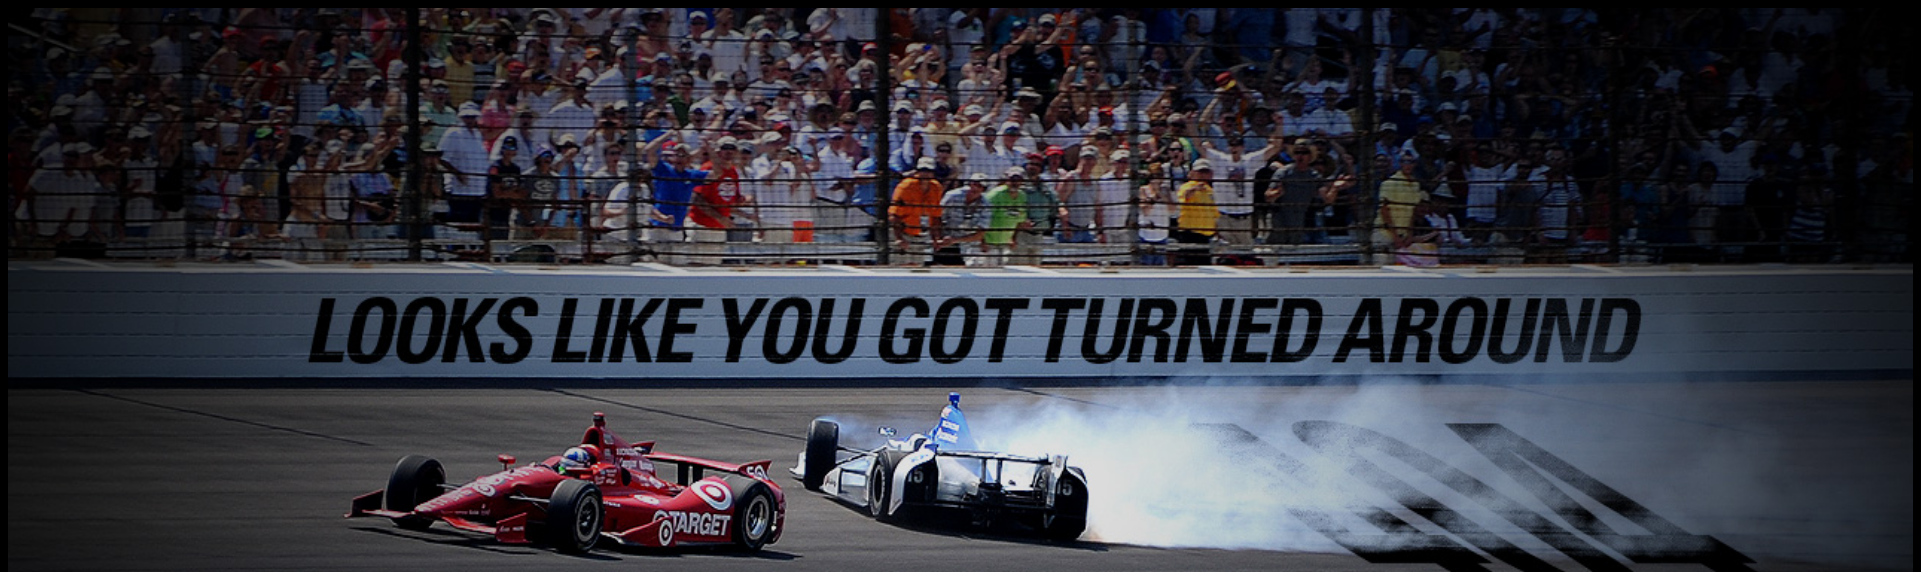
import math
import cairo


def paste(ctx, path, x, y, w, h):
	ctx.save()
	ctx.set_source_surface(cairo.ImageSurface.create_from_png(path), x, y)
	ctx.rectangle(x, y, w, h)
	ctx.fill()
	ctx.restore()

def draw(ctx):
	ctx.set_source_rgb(0, 0, 0)
	ctx.paint()
	paste(ctx, 'media/1.png', 8, 8, 1905, 564)


surface = cairo.ImageSurface(cairo.FORMAT_RGB24, 1921, 572)
ctx = cairo.Context(surface)
options = cairo.FontOptions()
options.set_hint_metrics(cairo.HINT_METRICS_OFF)
options.set_hint_style(cairo.HINT_STYLE_NONE)
ctx.set_font_options(options)
ctx.set_miter_limit(4)
draw(ctx)
surface.write_to_png('image.png')
